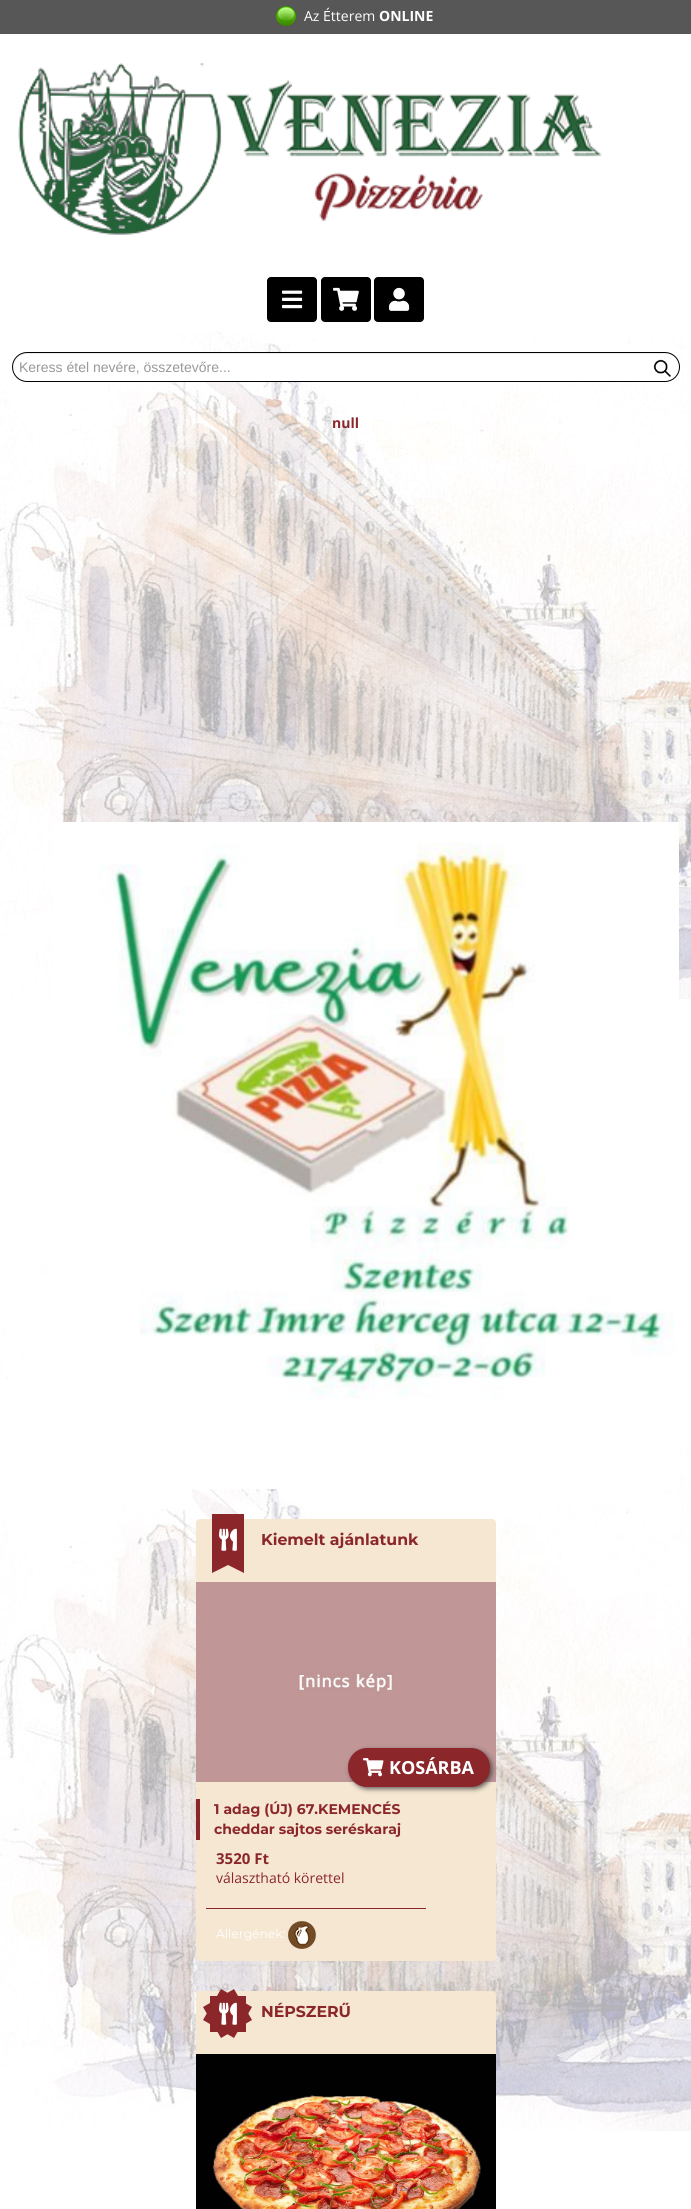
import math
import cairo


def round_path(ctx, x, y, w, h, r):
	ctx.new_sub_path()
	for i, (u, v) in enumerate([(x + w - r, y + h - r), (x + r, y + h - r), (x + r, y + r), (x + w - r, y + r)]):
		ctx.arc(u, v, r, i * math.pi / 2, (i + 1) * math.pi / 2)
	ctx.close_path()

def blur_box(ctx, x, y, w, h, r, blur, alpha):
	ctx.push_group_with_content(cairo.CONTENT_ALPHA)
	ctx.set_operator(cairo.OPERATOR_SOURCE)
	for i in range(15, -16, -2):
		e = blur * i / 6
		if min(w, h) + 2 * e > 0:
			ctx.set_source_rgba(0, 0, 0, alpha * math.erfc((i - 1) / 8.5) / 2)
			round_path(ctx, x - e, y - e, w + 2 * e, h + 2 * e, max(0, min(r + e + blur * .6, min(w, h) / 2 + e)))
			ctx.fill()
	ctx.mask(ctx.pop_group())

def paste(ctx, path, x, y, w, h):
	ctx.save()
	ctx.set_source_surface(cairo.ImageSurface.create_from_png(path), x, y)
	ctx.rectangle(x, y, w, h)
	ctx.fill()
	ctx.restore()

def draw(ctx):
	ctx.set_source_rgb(1, 1, 1)
	ctx.paint()
	paste(ctx, 'media/1.png', 0, 332, 691, 1877)
	ctx.set_source_rgb(0.341, 0.341, 0.341)
	ctx.rectangle(0, 0, 691, 34)
	ctx.fill()
	paste(ctx, 'media/2.png', 276, 6, 20, 20)
	ctx.select_font_face('Open Sans')
	ctx.set_font_size(14)
	ctx.set_source_rgb(1, 1, 1)
	ctx.move_to(304, 21)
	ctx.show_text('Az Étterem')
	ctx.select_font_face('Open Sans', cairo.FONT_SLANT_NORMAL, cairo.FONT_WEIGHT_BOLD)
	ctx.move_to(379, 21)
	ctx.show_text('ONLINE')
	paste(ctx, 'media/3.png', 18, 63, 584, 172)
	ctx.set_source_rgb(0, 0, 0)
	round_path(ctx, 267, 277, 50, 45, 4)
	ctx.fill()
	paste(ctx, 'media/4.png', 282, 290, 21, 19)
	round_path(ctx, 321, 277, 50, 45, 4)
	ctx.fill()
	paste(ctx, 'media/5.png', 333, 287, 26, 24)
	round_path(ctx, 374, 277, 50, 45, 4)
	ctx.fill()
	paste(ctx, 'media/6.png', 389, 287, 21, 24)
	ctx.set_source_rgb(1, 1, 1)
	round_path(ctx, 12, 352, 668, 30, 15)
	ctx.fill()
	ctx.set_source_rgb(0.925, 0.925, 0.925)
	ctx.new_path()
	ctx.move_to(27, 354)
	ctx.line_to(668, 354)
	ctx.line_to(673, 356)
	ctx.curve_to(679, 360, 680, 367, 678, 373)
	ctx.curve_to(682, 364, 675, 353, 665, 353)
	ctx.line_to(24, 353)
	ctx.curve_to(16, 355, 11, 365, 14, 373)
	ctx.curve_to(12, 364, 16, 354, 27, 354)
	ctx.close_path()
	ctx.fill()
	round_path(ctx, 12.5, 352.5, 667, 29, 14.5)
	ctx.set_source_rgb(0, 0, 0)
	ctx.set_line_width(1)
	ctx.stroke()
	ctx.select_font_face('Liberation Sans')
	ctx.set_source_rgb(0.6, 0.6, 0.6)
	ctx.move_to(19, 372)
	ctx.show_text('Keress étel nevére, összetevőre...')
	paste(ctx, 'media/7.png', 653, 359, 18, 18)
	ctx.select_font_face('Open Sans', cairo.FONT_SLANT_NORMAL, cairo.FONT_WEIGHT_BOLD)
	ctx.set_source_rgb(0.545, 0.153, 0.169)
	ctx.move_to(332, 428)
	ctx.show_text('null')
	paste(ctx, 'media/8.png', 53, 822, 626, 667)
	ctx.set_source_rgb(0.961, 0.906, 0.827)
	round_path(ctx, 196, 1519, 300, 442, 4)
	ctx.fill()
	ctx.set_source_rgb(0.545, 0.153, 0.169)
	ctx.rectangle(212, 1514, 32, 51)
	ctx.fill()
	paste(ctx, 'media/9.png', 219, 1528, 18, 23)
	ctx.new_path()
	ctx.move_to(244, 1565)
	ctx.line_to(244, 1573)
	ctx.line_to(228, 1565)
	ctx.close_path()
	ctx.move_to(212, 1573)
	ctx.line_to(212, 1565)
	ctx.line_to(228, 1565)
	ctx.close_path()
	ctx.fill()
	ctx.select_font_face('Montserrat', cairo.FONT_SLANT_NORMAL, cairo.FONT_WEIGHT_BOLD)
	ctx.set_font_size(15.75)
	ctx.move_to(261, 1545)
	ctx.show_text('Kiemelt ajánlatunk')
	paste(ctx, 'media/10.png', 196, 1582, 300, 200)
	ctx.set_source_rgb(0.196, 0.196, 0.196)
	blur_box(ctx, 350, 1750, 142, 39, 19, 2.5, 0.75)
	ctx.set_source_rgb(0.545, 0.153, 0.169)
	round_path(ctx, 348, 1748, 142, 39, 19)
	ctx.fill()
	paste(ctx, 'media/11.png', 363, 1758, 21, 19)
	ctx.select_font_face('Open Sans', cairo.FONT_SLANT_NORMAL, cairo.FONT_WEIGHT_BOLD)
	ctx.set_font_size(18)
	ctx.set_source_rgb(1, 1, 1)
	ctx.move_to(389, 1774)
	ctx.show_text('KOSÁRBA')
	ctx.set_source_rgb(0.545, 0.153, 0.169)
	ctx.rectangle(196, 1799, 4, 41)
	ctx.fill()
	ctx.select_font_face('Montserrat', cairo.FONT_SLANT_NORMAL, cairo.FONT_WEIGHT_BOLD)
	ctx.set_font_size(14)
	ctx.move_to(214, 1814)
	ctx.show_text('1 adag (ÚJ) 67.KEMENCÉS')
	ctx.move_to(214, 1834)
	ctx.show_text('cheddar sajtos seréskaraj')
	ctx.select_font_face('Open Sans', cairo.FONT_SLANT_NORMAL, cairo.FONT_WEIGHT_BOLD)
	ctx.set_font_size(15)
	ctx.move_to(216, 1864)
	ctx.show_text('3520 Ft')
	ctx.select_font_face('Open Sans')
	ctx.set_font_size(14)
	ctx.move_to(216, 1883)
	ctx.show_text('választható körettel')
	ctx.rectangle(206, 1908, 220, 1)
	ctx.fill()
	ctx.select_font_face('Montserrat')
	ctx.set_font_size(12.25)
	ctx.set_source_rgb(1, 1, 1)
	ctx.move_to(216, 1938)
	ctx.show_text('Allergének:')
	paste(ctx, 'media/12.png', 288, 1921, 28, 28)
	ctx.set_source_rgb(0.961, 0.906, 0.827)
	round_path(ctx, 196, 1991, 300, 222, 4)
	ctx.fill()
	ctx.set_source_rgb(0.545, 0.153, 0.169)
	ctx.rectangle(210, 1996, 36, 36)
	ctx.fill()
	ctx.new_path()
	ctx.move_to(221, 1989)
	ctx.line_to(252, 2007)
	ctx.line_to(234, 2038)
	ctx.line_to(203, 2020)
	ctx.close_path()
	ctx.fill()
	ctx.new_path()
	ctx.move_to(203, 2007)
	ctx.line_to(234, 1989)
	ctx.line_to(252, 2020)
	ctx.line_to(221, 2038)
	ctx.close_path()
	ctx.fill()
	paste(ctx, 'media/9.png', 219, 2002, 18, 23)
	ctx.select_font_face('Montserrat', cairo.FONT_SLANT_NORMAL, cairo.FONT_WEIGHT_BOLD)
	ctx.set_font_size(15.75)
	ctx.move_to(261, 2017)
	ctx.show_text('NÉPSZERŰ')
	paste(ctx, 'media/13.png', 196, 2054, 300, 155)


surface = cairo.ImageSurface(cairo.FORMAT_RGB24, 691, 2209)
ctx = cairo.Context(surface)
options = cairo.FontOptions()
options.set_hint_metrics(cairo.HINT_METRICS_OFF)
options.set_hint_style(cairo.HINT_STYLE_NONE)
ctx.set_font_options(options)
ctx.set_miter_limit(4)
draw(ctx)
surface.write_to_png('image.png')
